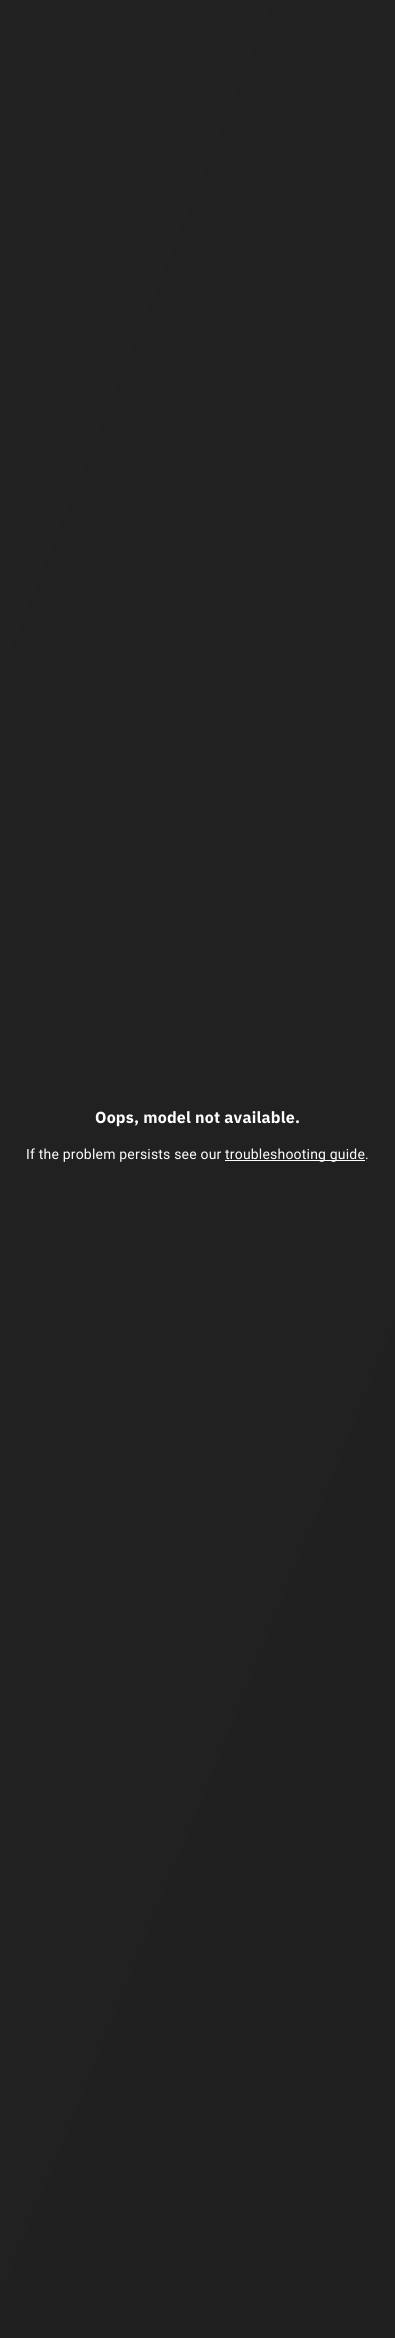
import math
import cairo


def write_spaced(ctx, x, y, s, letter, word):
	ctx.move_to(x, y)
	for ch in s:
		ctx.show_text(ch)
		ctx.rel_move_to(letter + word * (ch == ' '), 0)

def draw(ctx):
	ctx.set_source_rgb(1, 1, 1)
	ctx.paint()
	gradient = cairo.LinearGradient(-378, 936, 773, 1402)
	gradient.add_color_stop_rgba(0, 0.133, 0.133, 0.133, 1)
	gradient.add_color_stop_rgba(1, 0.125, 0.125, 0.125, 1)
	ctx.set_source(gradient)
	ctx.rectangle(0, 0, 395, 2338)
	ctx.fill()
	ctx.select_font_face('IBM Plex Sans', cairo.FONT_SLANT_NORMAL, cairo.FONT_WEIGHT_BOLD)
	ctx.set_font_size(16)
	ctx.set_source_rgb(1, 1, 1)
	write_spaced(ctx, 95, 1123, 'Oops, model not available.', 0.2, 0)
	ctx.select_font_face('Roboto')
	ctx.set_font_size(14)
	write_spaced(ctx, 26, 1159, 'If the problem persists see our', 0.2, 0)
	ctx.rectangle(225, 1160, 140, 1)
	ctx.fill()
	write_spaced(ctx, 225, 1159, 'troubleshooting guide.', 0.2, 0)


surface = cairo.ImageSurface(cairo.FORMAT_RGB24, 395, 2338)
ctx = cairo.Context(surface)
options = cairo.FontOptions()
options.set_hint_metrics(cairo.HINT_METRICS_OFF)
options.set_hint_style(cairo.HINT_STYLE_NONE)
ctx.set_font_options(options)
ctx.set_miter_limit(4)
draw(ctx)
surface.write_to_png('image.png')
